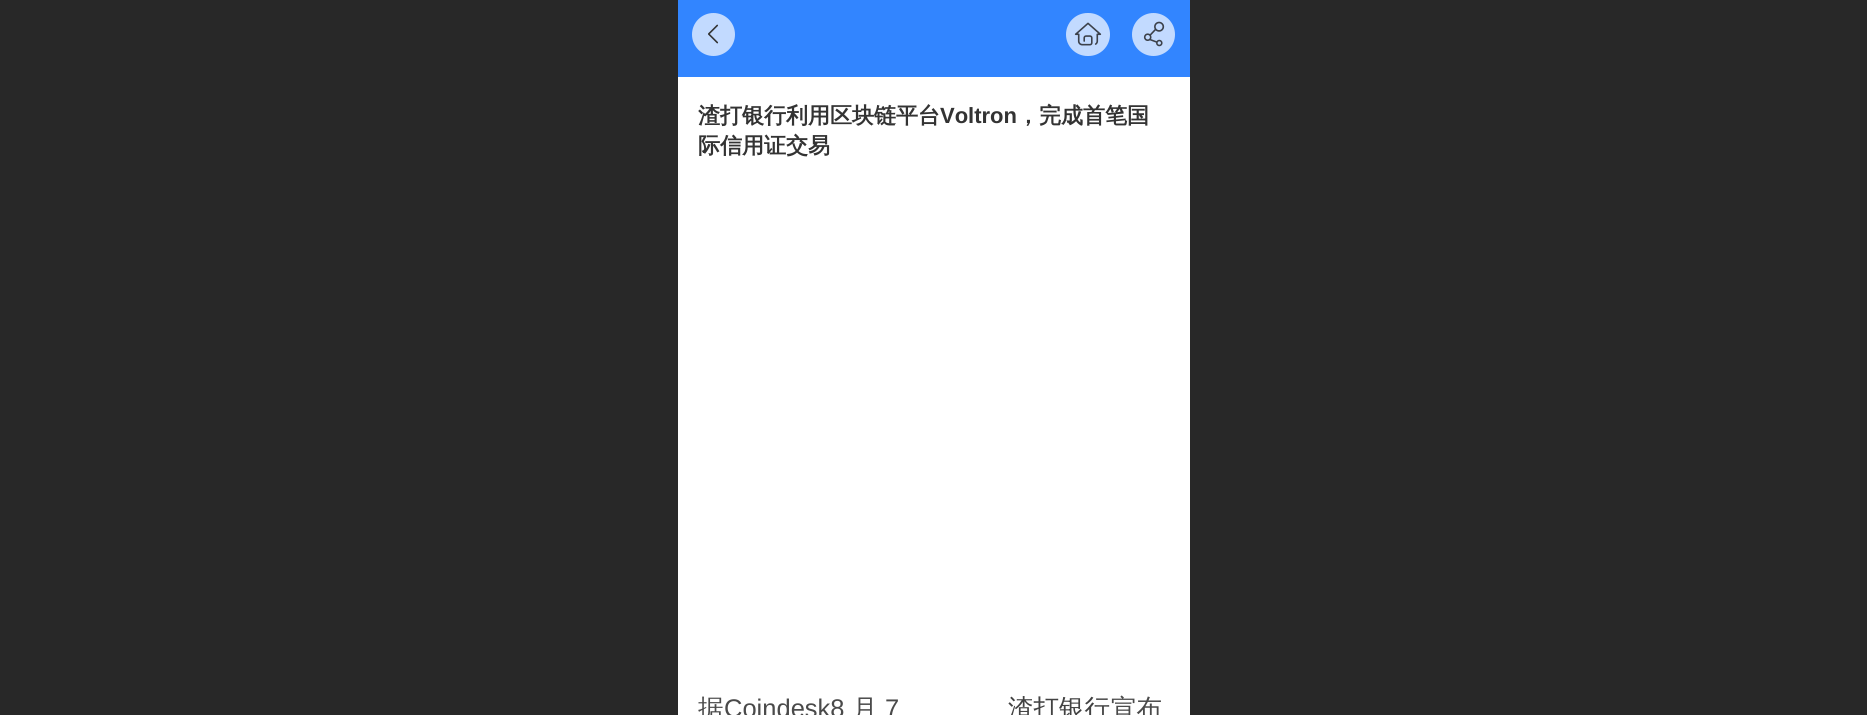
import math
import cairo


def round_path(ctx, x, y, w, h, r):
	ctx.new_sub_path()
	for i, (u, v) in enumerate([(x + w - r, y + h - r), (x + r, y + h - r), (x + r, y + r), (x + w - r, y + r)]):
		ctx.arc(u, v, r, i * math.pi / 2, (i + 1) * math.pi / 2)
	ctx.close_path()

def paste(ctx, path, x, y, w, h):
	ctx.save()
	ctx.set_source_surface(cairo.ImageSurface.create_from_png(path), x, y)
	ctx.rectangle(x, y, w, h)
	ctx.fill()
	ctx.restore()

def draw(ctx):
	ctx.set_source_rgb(1, 1, 1)
	ctx.paint()
	ctx.set_source_rgb(0.157, 0.157, 0.157)
	ctx.rectangle(0, 0, 678, 715)
	ctx.fill()
	ctx.set_source_rgb(0.196, 0.522, 1)
	ctx.rectangle(678, 0, 512, 77)
	ctx.fill()
	ctx.set_source_rgb(0.761, 0.855, 1)
	ctx.arc(713.5, 34.5, 21.5, 0, 2 * math.pi)
	ctx.fill()
	paste(ctx, 'media/1.png', 708, 24, 11, 20)
	round_path(ctx, 1066, 13, 44, 43, 21.5)
	ctx.fill()
	paste(ctx, 'media/2.png', 1074, 22, 28, 24)
	ctx.arc(1153.5, 34.5, 21.5, 0, 2 * math.pi)
	ctx.fill()
	paste(ctx, 'media/3.png', 1143, 21, 22, 26)
	ctx.select_font_face('WenQuanYi Zen Hei', cairo.FONT_SLANT_NORMAL, cairo.FONT_WEIGHT_BOLD)
	ctx.set_font_size(22)
	ctx.set_source_rgb(0.2, 0.2, 0.2)
	ctx.move_to(698, 123)
	ctx.show_text('渣打银行利用区块链平台')
	ctx.select_font_face('Liberation Sans', cairo.FONT_SLANT_NORMAL, cairo.FONT_WEIGHT_BOLD)
	ctx.move_to(940, 123)
	ctx.show_text('Voltron')
	ctx.select_font_face('WenQuanYi Zen Hei', cairo.FONT_SLANT_NORMAL, cairo.FONT_WEIGHT_BOLD)
	ctx.move_to(1017, 123)
	ctx.show_text('，完成首笔国')
	ctx.move_to(698, 153)
	ctx.show_text('际信用证交易')
	ctx.select_font_face('WenQuanYi Zen Hei Medium')
	ctx.set_font_size(25.5)
	ctx.set_source_rgb(0.29, 0.29, 0.29)
	ctx.move_to(698, 717)
	ctx.show_text('据')
	ctx.select_font_face('Liberation Sans')
	ctx.move_to(724, 717)
	ctx.show_text('Coindesk8')
	ctx.select_font_face('WenQuanYi Zen Hei Medium')
	ctx.move_to(852, 717)
	ctx.show_text('月')
	ctx.select_font_face('Liberation Sans')
	ctx.move_to(885, 717)
	ctx.show_text('7')
	ctx.select_font_face('WenQuanYi Zen Hei Medium')
	ctx.set_source_rgb(0.259, 0.259, 0.259)
	ctx.move_to(1008, 717)
	ctx.show_text('渣打银行')
	ctx.set_source_rgb(0.29, 0.29, 0.29)
	ctx.move_to(1111, 717)
	ctx.show_text('宣布')
	ctx.set_source_rgb(0.157, 0.157, 0.157)
	ctx.rectangle(1190, 0, 677, 715)
	ctx.fill()


surface = cairo.ImageSurface(cairo.FORMAT_RGB24, 1867, 715)
ctx = cairo.Context(surface)
options = cairo.FontOptions()
options.set_hint_metrics(cairo.HINT_METRICS_OFF)
options.set_hint_style(cairo.HINT_STYLE_NONE)
ctx.set_font_options(options)
ctx.set_miter_limit(4)
draw(ctx)
surface.write_to_png('image.png')
